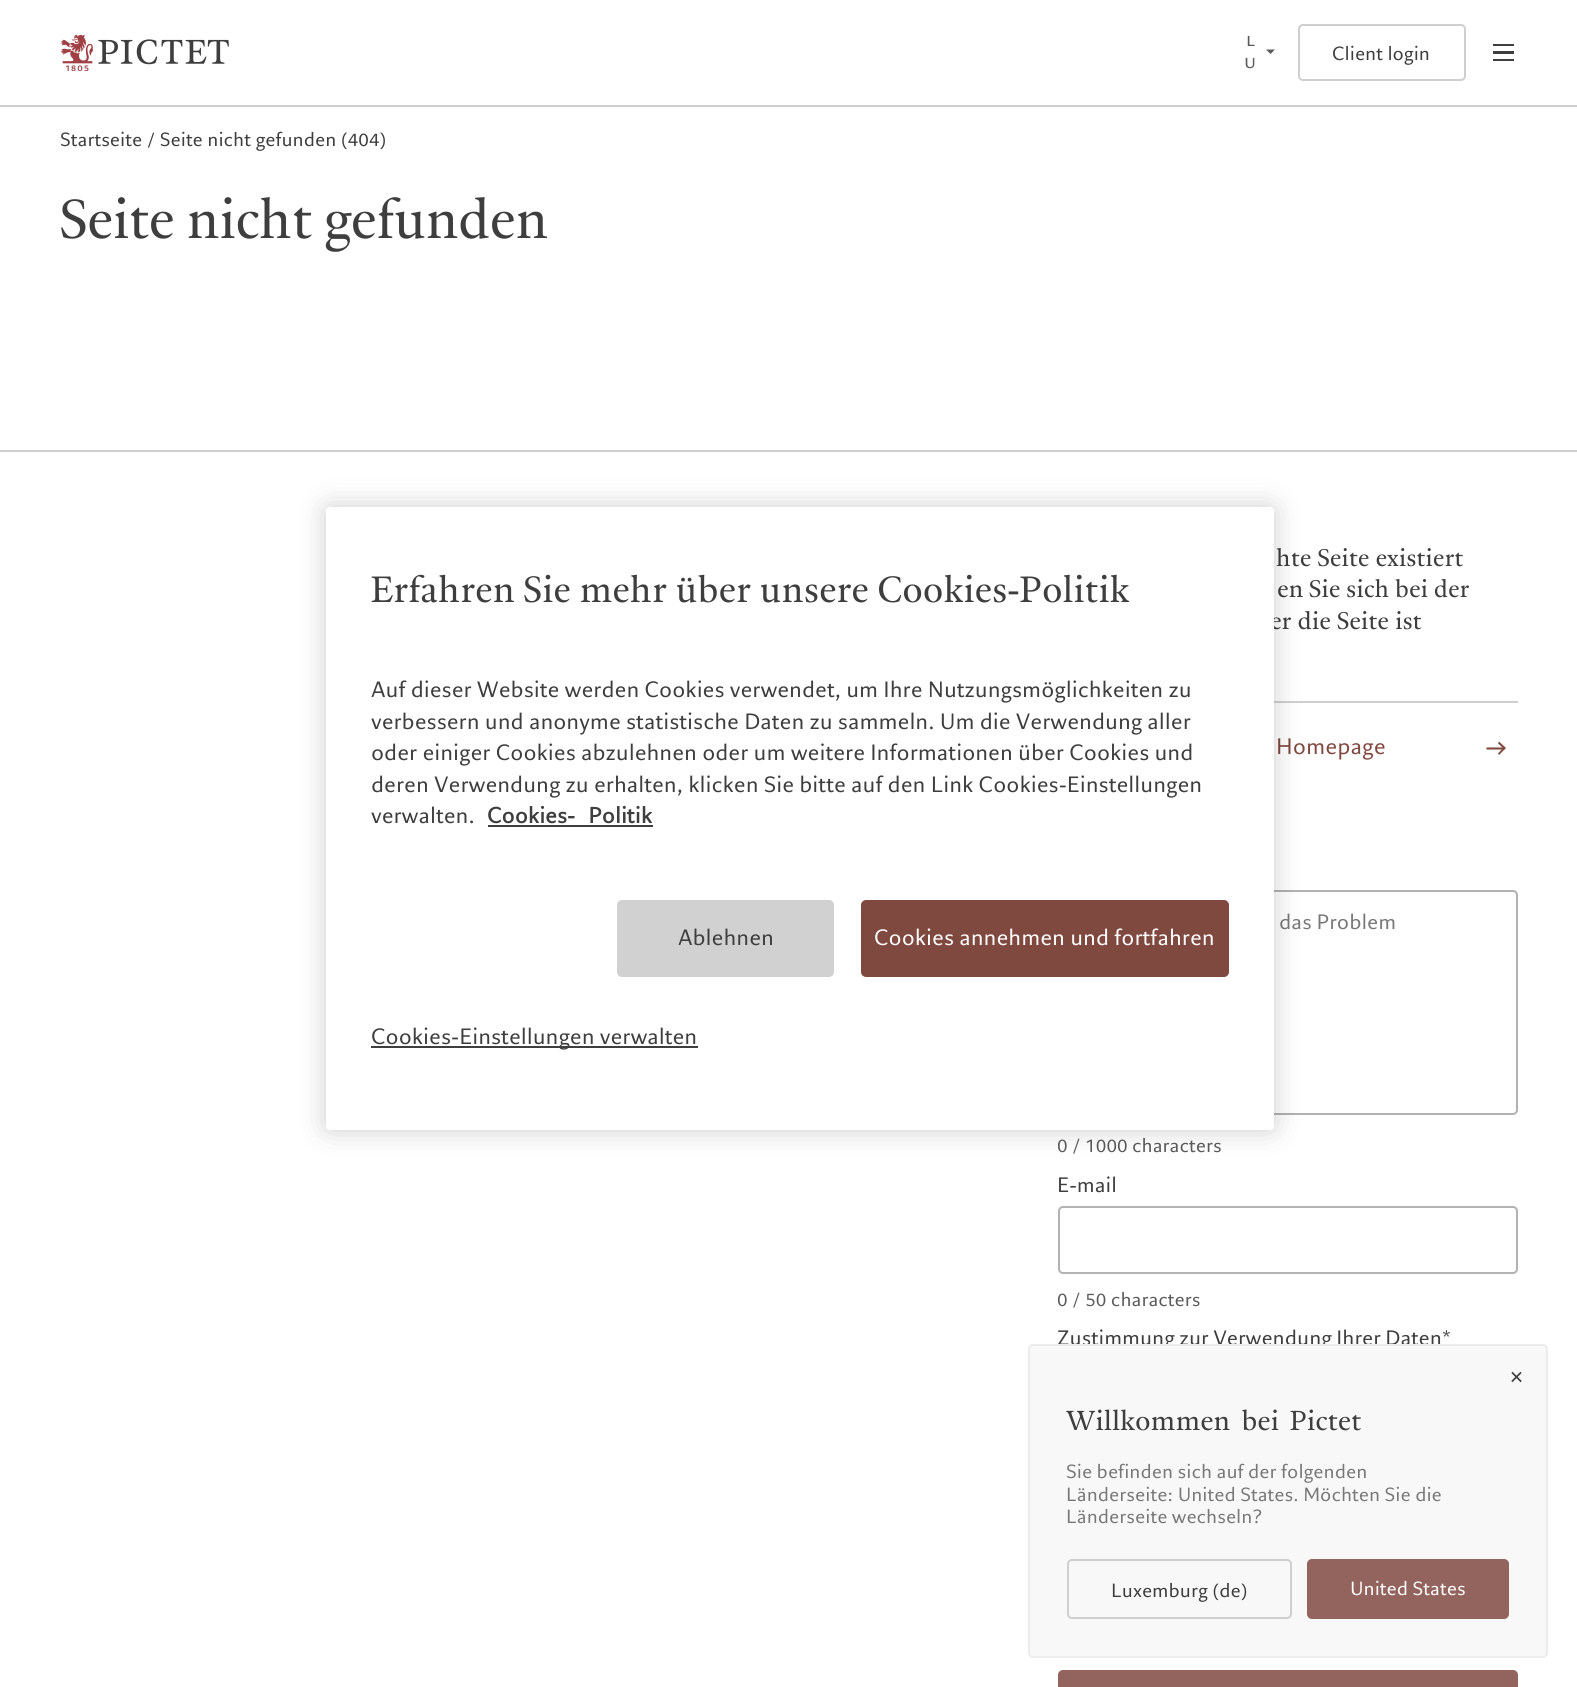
import math
import cairo


def write_spaced(ctx, x, y, s, letter, word):
	ctx.move_to(x, y)
	for ch in s:
		ctx.show_text(ch)
		ctx.rel_move_to(letter + word * (ch == ' '), 0)

def round_path(ctx, x, y, w, h, r):
	ctx.new_sub_path()
	for i, (u, v) in enumerate([(x + w - r, y + h - r), (x + r, y + h - r), (x + r, y + r), (x + w - r, y + r)]):
		ctx.arc(u, v, r, i * math.pi / 2, (i + 1) * math.pi / 2)
	ctx.close_path()

def blur_box(ctx, x, y, w, h, r, blur, alpha):
	ctx.push_group_with_content(cairo.CONTENT_ALPHA)
	ctx.set_operator(cairo.OPERATOR_SOURCE)
	for i in range(15, -16, -2):
		e = blur * i / 6
		if min(w, h) + 2 * e > 0:
			ctx.set_source_rgba(0, 0, 0, alpha * math.erfc((i - 1) / 8.5) / 2)
			round_path(ctx, x - e, y - e, w + 2 * e, h + 2 * e, max(0, min(r + e + blur * .6, min(w, h) / 2 + e)))
			ctx.fill()
	ctx.mask(ctx.pop_group())

def paste(ctx, path, x, y, w, h):
	ctx.save()
	ctx.set_source_surface(cairo.ImageSurface.create_from_png(path), x, y)
	ctx.rectangle(x, y, w, h)
	ctx.fill()
	ctx.restore()

def draw(ctx):
	ctx.set_source_rgb(1, 1, 1)
	ctx.paint()
	ctx.set_source_rgb(0.812, 0.812, 0.812)
	ctx.rectangle(0, 105, 1577, 2)
	ctx.fill()
	paste(ctx, 'media/1.png', 61, 35, 32, 36)
	paste(ctx, 'media/2.png', 98, 39, 131, 26)
	ctx.select_font_face('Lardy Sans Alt')
	ctx.set_font_size(18.1)
	ctx.set_source_rgb(0.357, 0.357, 0.357)
	ctx.move_to(1245, 46)
	ctx.show_text('l')
	ctx.move_to(1243, 68)
	ctx.show_text('u')
	ctx.new_path()
	ctx.move_to(1266, 49.5)
	ctx.line_to(1275, 49.5)
	ctx.line_to(1270.5, 54)
	ctx.close_path()
	ctx.fill()
	round_path(ctx, 1299, 25, 166, 55, 4)
	ctx.set_source_rgb(0.812, 0.812, 0.812)
	ctx.stroke()
	ctx.select_font_face('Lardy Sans')
	ctx.set_source_rgb(0.243, 0.243, 0.243)
	ctx.move_to(1332, 60)
	ctx.show_text('Client login')
	ctx.rectangle(1493, 44, 21, 2)
	ctx.rectangle(1493, 51, 21, 3)
	ctx.rectangle(1493, 59, 21, 2)
	ctx.fill()
	ctx.move_to(60, 146)
	ctx.show_text('Startseite / Seite nicht gefunden (404)')
	ctx.select_font_face('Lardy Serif')
	ctx.set_font_size(51.75)
	write_spaced(ctx, 60, 238, 'Seite nicht gefunden', -0.5, -1)
	ctx.set_source_rgb(0.812, 0.812, 0.812)
	ctx.rectangle(0, 450, 1577, 2)
	ctx.fill()
	ctx.select_font_face('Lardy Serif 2')
	ctx.set_font_size(22.75)
	ctx.set_source_rgb(0.243, 0.243, 0.243)
	ctx.move_to(1276, 566)
	ctx.show_text('hte Seite existiert')
	write_spaced(ctx, 1277, 597, 'en Sie sich bei der', 0, -0.5)
	ctx.move_to(1270, 629)
	ctx.show_text('er die Seite ist')
	ctx.set_source_rgb(0.812, 0.812, 0.812)
	ctx.rectangle(1274, 701, 244, 2)
	ctx.fill()
	ctx.select_font_face('Lardy Sans')
	ctx.set_font_size(21.25)
	ctx.set_source_rgb(0.502, 0.286, 0.251)
	write_spaced(ctx, 1276, 754, 'Homepage', 0, 2)
	ctx.set_fill_rule(cairo.FILL_RULE_EVEN_ODD)
	ctx.new_path()
	ctx.move_to(1503, 748)
	ctx.line_to(1498, 753.5)
	ctx.line_to(1499, 755)
	ctx.line_to(1506, 748)
	ctx.line_to(1499, 741.5)
	ctx.line_to(1498, 743.5)
	ctx.close_path()
	ctx.fill()
	ctx.new_path()
	ctx.move_to(1504.5, 748.5)
	ctx.line_to(1486.5, 748.5)
	ctx.set_line_width(2.1)
	ctx.stroke()
	round_path(ctx, 1059, 891, 458, 223, 4)
	ctx.set_source_rgb(0.698, 0.698, 0.698)
	ctx.set_line_width(2)
	ctx.stroke()
	ctx.set_font_size(19.75)
	ctx.set_source_rgb(0.471, 0.471, 0.471)
	ctx.move_to(1279, 929)
	ctx.show_text('das Problem')
	ctx.set_font_size(18.1)
	ctx.set_source_rgb(0.357, 0.357, 0.357)
	ctx.move_to(1057, 1152)
	ctx.show_text('0 / 1000 characters')
	ctx.set_font_size(19.75)
	ctx.set_source_rgb(0.243, 0.243, 0.243)
	ctx.move_to(1057, 1192)
	ctx.show_text('E-mail')
	round_path(ctx, 1059, 1207, 458, 66, 4)
	ctx.set_source_rgb(0.698, 0.698, 0.698)
	ctx.stroke()
	ctx.set_font_size(18.1)
	ctx.set_source_rgb(0.357, 0.357, 0.357)
	ctx.move_to(1057, 1306)
	ctx.show_text('0 / 50 characters')
	ctx.set_font_size(19.75)
	ctx.set_source_rgb(0.243, 0.243, 0.243)
	write_spaced(ctx, 1057, 1345, 'Zustimmung zur Verwendung Ihrer Daten*', 0, -0.5)
	ctx.set_source_rgb(0.576, 0.392, 0.365)
	round_path(ctx, 1058, 1670, 460, 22, 5)
	ctx.fill()
	ctx.set_source_rgb(0, 0, 0)
	blur_box(ctx, 326, 507, 948, 623, 4, 13.5, 0.2)
	ctx.set_source_rgb(1, 1, 1)
	round_path(ctx, 326, 507, 948, 623, 4)
	ctx.fill()
	ctx.select_font_face('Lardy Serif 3')
	ctx.set_font_size(34.5)
	ctx.set_source_rgb(0.243, 0.243, 0.243)
	write_spaced(ctx, 371, 602, 'Erfahren Sie mehr über unsere Cookies-Politik', 0, -0.5)
	ctx.select_font_face('Lardy Sans')
	ctx.set_font_size(21)
	for x, y, s in [
		(371, 697, 'Auf dieser Website werden Cookies verwendet, um Ihre Nutzungsmöglichkeiten zu'),
		(371, 729, 'verbessern und anonyme statistische Daten zu sammeln. Um die Verwendung aller'),
		(371, 760, 'oder einiger Cookies abzulehnen oder um weitere Informationen über Cookies und'),
		(371, 792, 'deren Verwendung zu erhalten, klicken Sie bitte auf den Link Cookies-Einstellungen'),
		(371, 823, 'verwalten.'),
	]:
		ctx.move_to(x, y)
		ctx.show_text(s)
	ctx.select_font_face('Lardy Sans', cairo.FONT_SLANT_NORMAL, cairo.FONT_WEIGHT_BOLD)
	write_spaced(ctx, 487, 823, 'Cookies- Politik', 0, 8)
	ctx.rectangle(488, 825, 165, 2)
	ctx.fill()
	ctx.set_source_rgb(0.82, 0.82, 0.82)
	round_path(ctx, 618, 901, 215, 75, 4)
	ctx.fill_preserve()
	ctx.stroke()
	ctx.select_font_face('Lardy Sans')
	ctx.set_source_rgb(0.243, 0.243, 0.243)
	ctx.move_to(678, 945)
	ctx.show_text('Ablehnen')
	ctx.set_source_rgb(0.502, 0.286, 0.251)
	round_path(ctx, 862, 901, 366, 75, 4)
	ctx.fill_preserve()
	ctx.stroke()
	ctx.set_source_rgb(1, 1, 1)
	ctx.move_to(874, 945)
	ctx.show_text('Cookies annehmen und fortfahren')
	ctx.set_source_rgb(0.243, 0.243, 0.243)
	ctx.rectangle(371, 1046, 327, 2)
	ctx.fill()
	ctx.move_to(371, 1044)
	ctx.show_text('Cookies-Einstellungen verwalten')
	ctx.set_source_rgb(0.969, 0.969, 0.969)
	round_path(ctx, 1029, 1345, 518, 312, 4)
	ctx.fill_preserve()
	ctx.set_source_rgb(0.925, 0.925, 0.925)
	ctx.stroke()
	paste(ctx, 'media/3.png', 1511, 1371, 11, 12)
	ctx.select_font_face('Lardy Serif 2')
	ctx.set_font_size(25.9)
	ctx.set_source_rgb(0.243, 0.243, 0.243)
	write_spaced(ctx, 1066, 1430, 'Willkommen bei Pictet', 0, 4)
	ctx.select_font_face('Lardy Sans')
	ctx.set_font_size(18.1)
	ctx.set_source_rgb(0.471, 0.471, 0.471)
	for x, y, s in [
		(1066, 1478, 'Sie befinden sich auf der folgenden'),
		(1066, 1501, 'Länderseite: United States. Möchten Sie die'),
		(1066, 1523, 'Länderseite wechseln?'),
	]:
		ctx.move_to(x, y)
		ctx.show_text(s)
	round_path(ctx, 1068, 1560, 223, 58, 4)
	ctx.set_source_rgb(0.812, 0.812, 0.812)
	ctx.stroke()
	ctx.set_source_rgb(0.243, 0.243, 0.243)
	ctx.move_to(1111, 1597)
	ctx.show_text('Luxemburg (de)')
	ctx.set_source_rgb(0.576, 0.392, 0.365)
	round_path(ctx, 1307, 1559, 202, 60, 5)
	ctx.fill()
	ctx.set_source_rgb(1, 1, 1)
	ctx.move_to(1350, 1595)
	ctx.show_text('United States')


surface = cairo.ImageSurface(cairo.FORMAT_RGB24, 1577, 1687)
ctx = cairo.Context(surface)
options = cairo.FontOptions()
options.set_hint_metrics(cairo.HINT_METRICS_OFF)
options.set_hint_style(cairo.HINT_STYLE_NONE)
ctx.set_font_options(options)
ctx.set_miter_limit(4)
draw(ctx)
surface.write_to_png('image.png')
